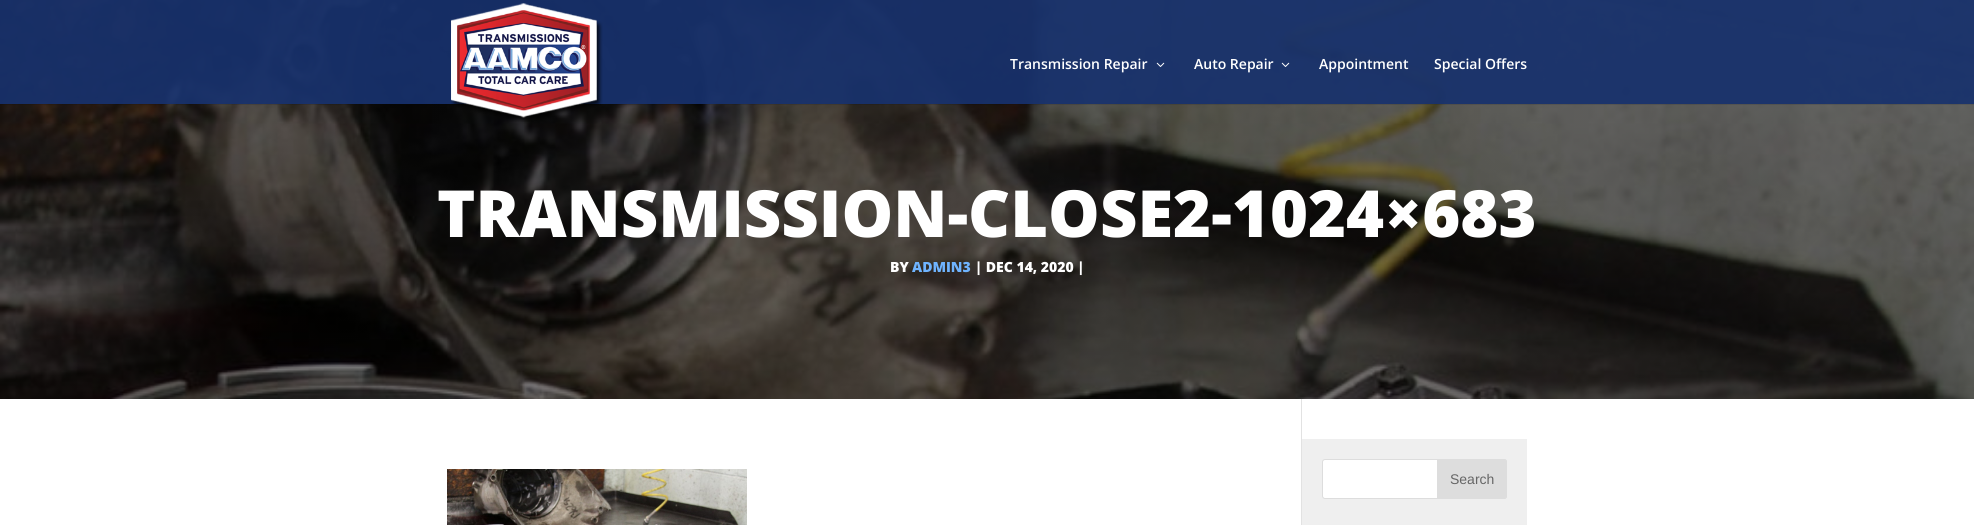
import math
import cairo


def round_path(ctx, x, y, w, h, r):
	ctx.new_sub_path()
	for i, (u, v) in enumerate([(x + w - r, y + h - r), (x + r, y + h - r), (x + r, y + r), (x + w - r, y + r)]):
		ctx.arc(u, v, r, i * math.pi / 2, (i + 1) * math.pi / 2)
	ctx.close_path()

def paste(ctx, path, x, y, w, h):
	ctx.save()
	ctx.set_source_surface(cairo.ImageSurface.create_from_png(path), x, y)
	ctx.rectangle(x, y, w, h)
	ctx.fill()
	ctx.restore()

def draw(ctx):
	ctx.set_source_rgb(1, 1, 1)
	ctx.paint()
	paste(ctx, 'media/4.png', 0, 0, 1974, 399)
	ctx.set_source_rgba(0, 0, 0, 0.1)
	ctx.rectangle(0, 104, 1974, 1)
	ctx.fill()
	ctx.set_source_rgba(0.09, 0.192, 0.427, 0.92)
	ctx.rectangle(0, 0, 1974, 104)
	ctx.fill()
	paste(ctx, 'media/1.png', 451, 3, 152, 119)
	ctx.select_font_face('Open Sans SemiBold')
	ctx.set_font_size(14)
	ctx.set_source_rgb(1, 1, 1)
	ctx.move_to(1010, 69)
	ctx.show_text('Transmission Repair')
	paste(ctx, 'media/2.png', 1156, 62, 9, 5)
	ctx.move_to(1194, 69)
	ctx.show_text('Auto Repair')
	paste(ctx, 'media/3.png', 1281, 62, 9, 5)
	ctx.move_to(1319, 69)
	ctx.show_text('Appointment')
	ctx.move_to(1434, 69)
	ctx.show_text('Special Offers')
	ctx.select_font_face('Open Sans ExtraBold')
	ctx.set_font_size(65)
	ctx.move_to(437, 237)
	ctx.show_text('TRANSMISSION-CLOSE2-1024×683')
	ctx.set_font_size(14)
	ctx.move_to(890, 272)
	ctx.show_text('BY')
	ctx.set_source_rgb(0.435, 0.706, 1)
	ctx.move_to(912, 272)
	ctx.show_text('ADMIN3')
	ctx.set_source_rgb(1, 1, 1)
	ctx.move_to(975, 272)
	ctx.show_text('| DEC 14, 2020 |')
	ctx.set_source_rgb(0.886, 0.886, 0.886)
	ctx.rectangle(1301, 399, 1, 126)
	ctx.fill()
	paste(ctx, 'media/5.png', 447, 469, 300, 56)
	ctx.set_source_rgb(0.937, 0.937, 0.937)
	ctx.rectangle(1302, 439, 225, 86)
	ctx.fill()
	ctx.set_source_rgb(1, 1, 1)
	round_path(ctx, 1322.5, 459.5, 184, 39, 2.5)
	ctx.fill_preserve()
	ctx.set_source_rgb(0.867, 0.867, 0.867)
	ctx.set_line_width(1)
	ctx.stroke()
	ctx.new_path()
	ctx.move_to(1437.5, 459.5)
	ctx.line_to(1504, 459.5)
	ctx.curve_to(1505.5, 459.5, 1506.5, 460.5, 1506.5, 462)
	ctx.line_to(1506.5, 496)
	ctx.curve_to(1506.5, 497.5, 1505.5, 498.5, 1504, 498.5)
	ctx.line_to(1437.5, 498.5)
	ctx.close_path()
	ctx.fill_preserve()
	ctx.stroke()
	ctx.select_font_face('Liberation Sans')
	ctx.set_source_rgb(0.4, 0.4, 0.4)
	ctx.move_to(1450, 484)
	ctx.show_text('Search')


surface = cairo.ImageSurface(cairo.FORMAT_RGB24, 1974, 525)
ctx = cairo.Context(surface)
options = cairo.FontOptions()
options.set_hint_metrics(cairo.HINT_METRICS_OFF)
options.set_hint_style(cairo.HINT_STYLE_NONE)
ctx.set_font_options(options)
ctx.set_miter_limit(4)
draw(ctx)
surface.write_to_png('image.png')
